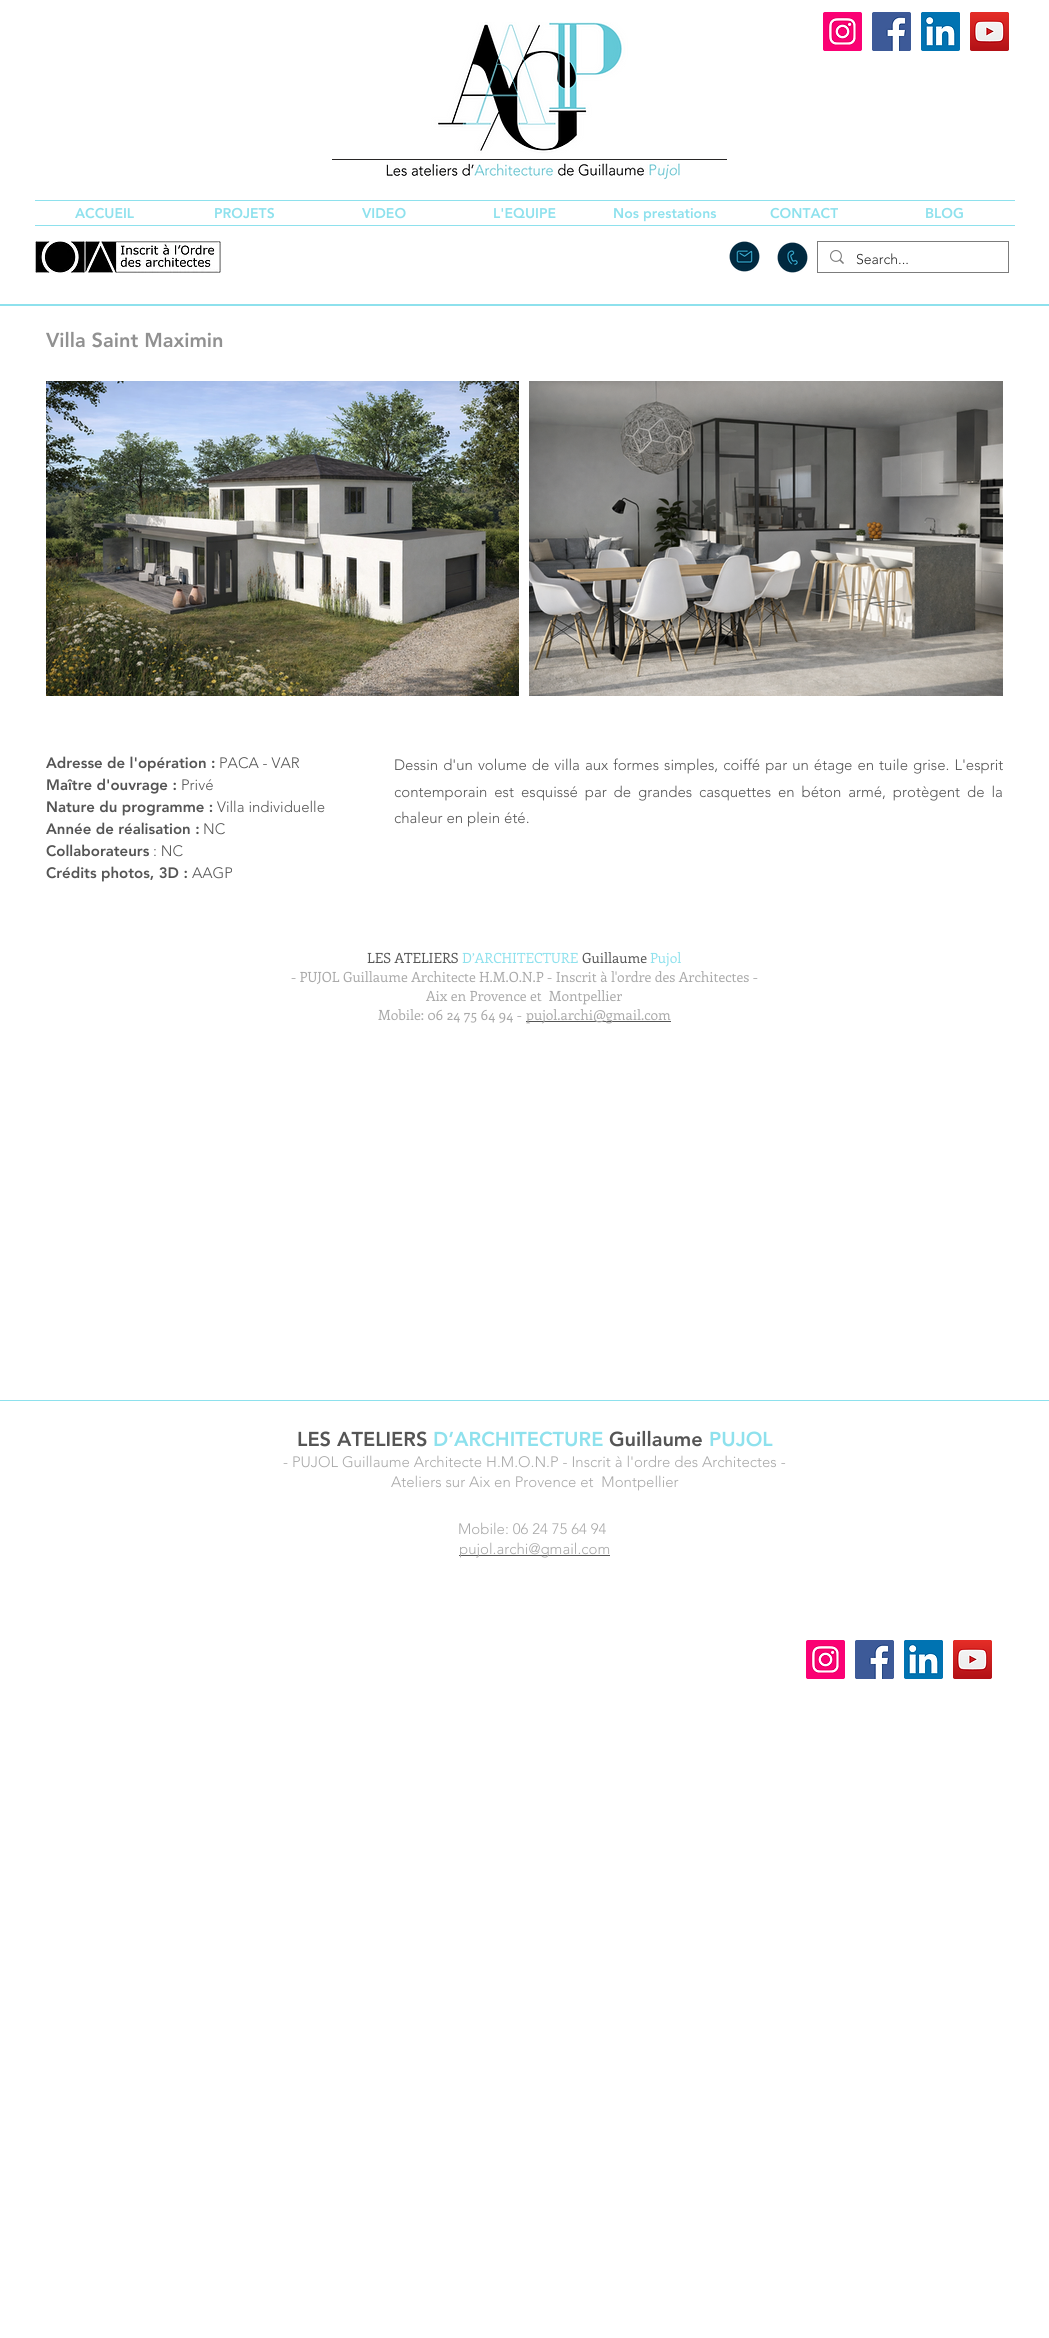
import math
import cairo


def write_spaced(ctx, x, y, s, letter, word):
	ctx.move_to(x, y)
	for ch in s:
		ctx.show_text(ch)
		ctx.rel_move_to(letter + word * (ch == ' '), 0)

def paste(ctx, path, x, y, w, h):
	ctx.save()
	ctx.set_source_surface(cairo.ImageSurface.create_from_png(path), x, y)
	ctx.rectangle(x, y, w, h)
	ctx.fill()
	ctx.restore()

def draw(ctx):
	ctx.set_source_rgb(1, 1, 1)
	ctx.paint()
	paste(ctx, 'media/1.png', 386, 22, 294, 158)
	paste(ctx, 'media/2.png', 823, 12, 39, 39)
	paste(ctx, 'media/3.png', 872, 12, 39, 39)
	paste(ctx, 'media/4.png', 921, 12, 39, 39)
	paste(ctx, 'media/5.png', 970, 12, 39, 39)
	ctx.set_source_rgb(0.157, 0.149, 0.149)
	ctx.rectangle(332, 159, 395, 1)
	ctx.fill()
	ctx.set_source_rgb(0.557, 0.882, 0.929)
	ctx.rectangle(35, 200, 980, 1)
	ctx.fill()
	ctx.select_font_face('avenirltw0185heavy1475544 Black')
	ctx.set_font_size(14)
	for x, y, s in [
		(75, 218, 'ACCUEIL'),
		(214, 218, 'PROJETS'),
		(362, 218, 'VIDEO'),
		(493, 218, 'L\'EQUIPE'),
		(613, 218, 'Nos prestations'),
		(770, 218, 'CONTACT'),
		(925, 218, 'BLOG'),
	]:
		ctx.move_to(x, y)
		ctx.show_text(s)
	ctx.rectangle(35, 225, 980, 1)
	ctx.fill()
	paste(ctx, 'media/6.png', 35, 241, 186, 32)
	paste(ctx, 'media/7.png', 729, 241, 31, 31)
	paste(ctx, 'media/8.png', 777, 242, 31, 31)
	ctx.rectangle(817.5, 241.5, 191, 31)
	ctx.set_source_rgb(0.486, 0.486, 0.486)
	ctx.set_line_width(1)
	ctx.stroke()
	paste(ctx, 'media/9.png', 830, 250, 14, 14)
	ctx.select_font_face('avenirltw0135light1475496 Light')
	ctx.set_source_rgb(0.141, 0.141, 0.141)
	ctx.move_to(856, 264)
	ctx.show_text('Search...')
	ctx.set_source_rgb(0.557, 0.882, 0.929)
	ctx.rectangle(0, 304, 1049, 2)
	ctx.fill()
	ctx.select_font_face('avenirltw0185heavy1475544 Black')
	ctx.set_font_size(20)
	ctx.set_source_rgb(0.569, 0.569, 0.569)
	ctx.move_to(46, 347)
	ctx.show_text('Villa Saint Maximin')
	paste(ctx, 'media/10.png', 46, 381, 473, 315)
	paste(ctx, 'media/11.png', 529, 381, 474, 315)
	ctx.set_font_size(15)
	ctx.set_source_rgb(0.333, 0.333, 0.333)
	ctx.move_to(46, 768)
	ctx.show_text('Adresse de l\'opération :')
	ctx.select_font_face('avenirltw0135light1475496 Light')
	ctx.move_to(219, 768)
	ctx.show_text('PACA - VAR')
	ctx.select_font_face('avenirltw0185heavy1475544 Black')
	ctx.move_to(46, 790)
	ctx.show_text('Maître d\'ouvrage :')
	ctx.select_font_face('avenirltw0135light1475496 Light')
	ctx.move_to(181, 790)
	ctx.show_text('Privé')
	ctx.select_font_face('avenirltw0185heavy1475544 Black')
	ctx.move_to(46, 812)
	ctx.show_text('Nature du programme :')
	ctx.select_font_face('avenirltw0135light1475496 Light')
	ctx.move_to(217, 812)
	ctx.show_text('Villa individuelle')
	ctx.select_font_face('avenirltw0185heavy1475544 Black')
	ctx.move_to(46, 834)
	ctx.show_text('Année de réalisation :')
	ctx.select_font_face('avenirltw0135light1475496 Light')
	ctx.move_to(203, 834)
	ctx.show_text('NC')
	ctx.select_font_face('avenirltw0185heavy1475544 Black')
	ctx.move_to(46, 856)
	ctx.show_text('Collaborateurs')
	ctx.select_font_face('avenirltw0135light1475496 Light')
	ctx.move_to(153, 856)
	ctx.show_text(': NC')
	ctx.select_font_face('avenirltw0185heavy1475544 Black')
	ctx.move_to(46, 878)
	ctx.show_text('Crédits photos, 3D :')
	ctx.select_font_face('avenirltw0135light1475496 Light')
	ctx.move_to(192, 878)
	ctx.show_text('AAGP')
	write_spaced(ctx, 394, 770, 'Dessin d\'un volume de villa aux formes simples, coiffé par un étage en tuile grise. L\'esprit', 0, 1.1)
	write_spaced(ctx, 394, 797, 'contemporain est esquissé par de grandes casquettes en béton armé, protègent de la', 0, 3)
	ctx.move_to(394, 823)
	ctx.show_text('chaleur en plein été.')
	ctx.select_font_face('Enriqueta')
	ctx.set_font_size(14)
	ctx.move_to(367, 963)
	ctx.show_text('LES ATELIERS')
	ctx.set_source_rgb(0.557, 0.882, 0.929)
	ctx.move_to(462, 963)
	ctx.show_text('D’ARCHITECTURE')
	ctx.set_source_rgb(0.333, 0.333, 0.333)
	ctx.move_to(582, 963)
	ctx.show_text('Guillaume')
	ctx.set_source_rgb(0.557, 0.882, 0.929)
	ctx.move_to(650, 963)
	ctx.show_text('Pujol')
	ctx.set_source_rgb(0.663, 0.663, 0.663)
	for x, y, s in [
		(291, 982, '- PUJOL Guillaume Architecte H.M.O.N.P - Inscrit à l\'ordre des Architectes -'),
		(426, 1001, 'Aix en Provence et  Montpellier'),
		(378, 1020, 'Mobile: 06 24 75 64 94 -'),
	]:
		ctx.move_to(x, y)
		ctx.show_text(s)
	ctx.set_source_rgb(0.333, 0.333, 0.333)
	ctx.rectangle(526, 1021, 145, 1)
	ctx.fill()
	ctx.set_source_rgb(0.663, 0.663, 0.663)
	ctx.move_to(526, 1020)
	ctx.show_text('pujol.archi@gmail.com')
	ctx.set_source_rgb(0.557, 0.882, 0.929)
	ctx.rectangle(0, 1400, 1049, 1)
	ctx.fill()
	ctx.select_font_face('avenirltw0185heavy1475544 Black')
	ctx.set_font_size(20)
	ctx.set_source_rgb(0.333, 0.333, 0.333)
	ctx.move_to(297, 1446)
	ctx.show_text('LES ATELIERS')
	ctx.set_source_rgb(0.557, 0.882, 0.929)
	ctx.move_to(433, 1446)
	ctx.show_text('D’ARCHITECTURE')
	ctx.set_source_rgb(0.333, 0.333, 0.333)
	ctx.move_to(609, 1446)
	ctx.show_text('Guillaume')
	ctx.set_source_rgb(0.557, 0.882, 0.929)
	ctx.move_to(709, 1446)
	ctx.show_text('PUJOL')
	ctx.select_font_face('avenirltw0135light1475496 Light')
	ctx.set_font_size(15)
	ctx.set_source_rgb(0.663, 0.663, 0.663)
	for x, y, s in [
		(283, 1467, '- PUJOL Guillaume Architecte H.M.O.N.P - Inscrit à l\'ordre des Architectes -'),
		(391, 1487, 'Ateliers sur Aix en Provence et  Montpellier'),
		(458, 1534, 'Mobile: 06 24 75 64 94'),
	]:
		ctx.move_to(x, y)
		ctx.show_text(s)
	ctx.set_source_rgb(0.333, 0.333, 0.333)
	ctx.rectangle(459, 1555, 151, 1)
	ctx.fill()
	ctx.set_source_rgb(0.663, 0.663, 0.663)
	ctx.move_to(459, 1554)
	ctx.show_text('pujol.archi@gmail.com')
	paste(ctx, 'media/2.png', 806, 1640, 39, 39)
	paste(ctx, 'media/3.png', 855, 1640, 39, 39)
	paste(ctx, 'media/4.png', 904, 1640, 39, 39)
	paste(ctx, 'media/5.png', 953, 1640, 39, 39)


surface = cairo.ImageSurface(cairo.FORMAT_RGB24, 1049, 2338)
ctx = cairo.Context(surface)
options = cairo.FontOptions()
options.set_hint_metrics(cairo.HINT_METRICS_OFF)
options.set_hint_style(cairo.HINT_STYLE_NONE)
ctx.set_font_options(options)
ctx.set_miter_limit(4)
draw(ctx)
surface.write_to_png('image.png')
